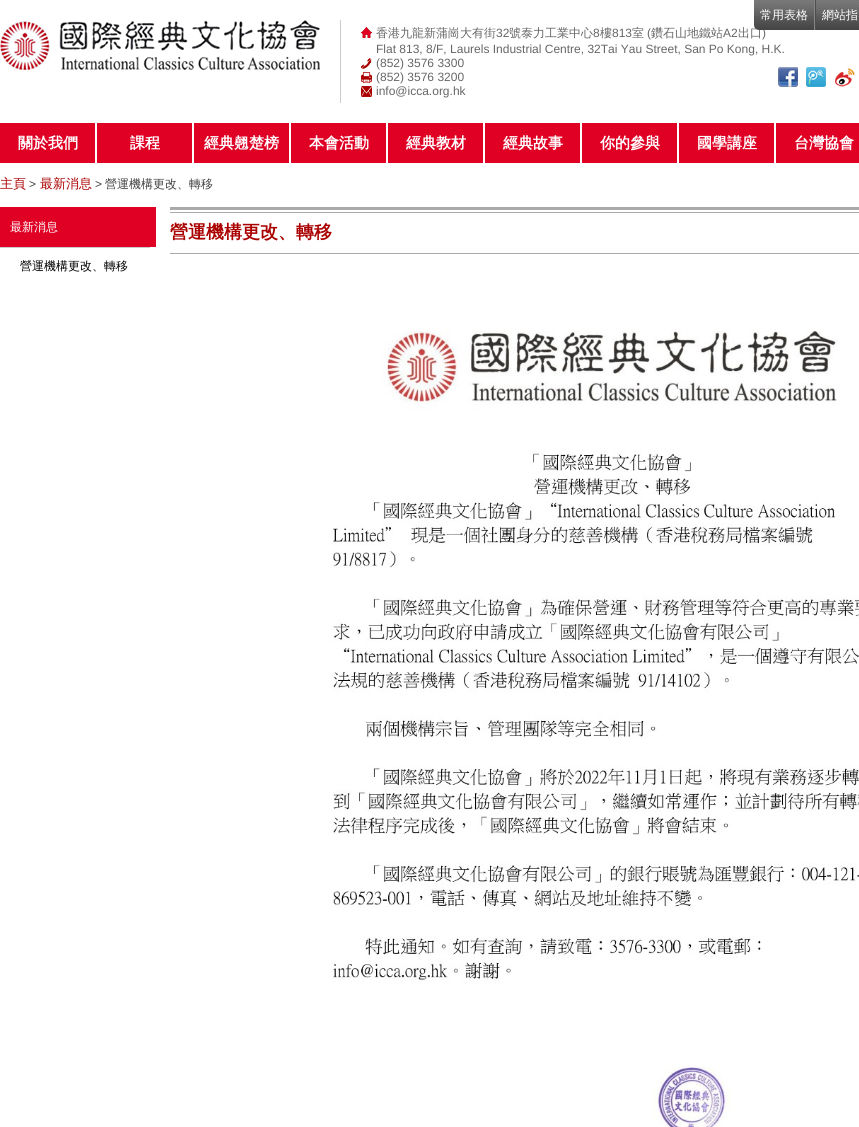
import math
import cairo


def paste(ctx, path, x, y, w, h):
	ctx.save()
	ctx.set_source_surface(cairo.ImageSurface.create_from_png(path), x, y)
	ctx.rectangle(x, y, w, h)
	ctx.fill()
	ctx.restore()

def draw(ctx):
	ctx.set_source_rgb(1, 1, 1)
	ctx.paint()
	ctx.set_source_rgb(0.522, 0.522, 0.522)
	ctx.rectangle(814, 0, 1, 30)
	ctx.fill()
	ctx.select_font_face('WenQuanYi Zen Hei Medium')
	ctx.set_font_size(12)
	ctx.set_source_rgb(0.4, 0.4, 0.4)
	ctx.move_to(738, 37)
	ctx.show_text('出口')
	ctx.select_font_face('Liberation Sans')
	ctx.move_to(762, 37)
	ctx.show_text(')')
	paste(ctx, 'media/1.png', 754, 0, 60, 30)
	ctx.select_font_face('WenQuanYi Zen Hei Medium')
	ctx.set_source_rgb(1, 1, 1)
	ctx.move_to(760, 19)
	ctx.show_text('常用表格')
	ctx.set_source_rgb(0.306, 0.306, 0.306)
	ctx.rectangle(815, 0, 1, 30)
	ctx.fill()
	paste(ctx, 'media/2.png', 816, 0, 43, 30)
	ctx.set_source_rgb(1, 1, 1)
	ctx.move_to(822, 19)
	ctx.show_text('網站指')
	paste(ctx, 'media/3.png', 0, 20, 320, 50)
	ctx.set_source_rgb(0.8, 0.8, 0.8)
	ctx.rectangle(340, 20, 1, 83)
	ctx.fill()
	paste(ctx, 'media/4.png', 361, 27, 11, 11)
	ctx.set_source_rgb(0.4, 0.4, 0.4)
	ctx.move_to(376, 37)
	ctx.show_text('香港九龍新蒲崗大有街')
	ctx.select_font_face('Liberation Sans')
	ctx.move_to(496, 37)
	ctx.show_text('32')
	ctx.select_font_face('WenQuanYi Zen Hei Medium')
	ctx.move_to(509, 37)
	ctx.show_text('號泰力工業中心')
	ctx.select_font_face('Liberation Sans')
	ctx.move_to(593, 37)
	ctx.show_text('8')
	ctx.select_font_face('WenQuanYi Zen Hei Medium')
	ctx.move_to(600, 37)
	ctx.show_text('樓')
	ctx.select_font_face('Liberation Sans')
	ctx.move_to(612, 37)
	ctx.show_text('813')
	ctx.select_font_face('WenQuanYi Zen Hei Medium')
	ctx.move_to(632, 37)
	ctx.show_text('室')
	ctx.select_font_face('Liberation Sans')
	ctx.move_to(647, 37)
	ctx.show_text('(')
	ctx.select_font_face('WenQuanYi Zen Hei Medium')
	ctx.move_to(651, 37)
	ctx.show_text('鑽石山地鐵站')
	ctx.select_font_face('Liberation Sans')
	ctx.move_to(723, 37)
	ctx.show_text('A2')
	ctx.move_to(376, 53)
	ctx.show_text('Flat 813, 8/F, Laurels Industrial Centre, 32Tai Yau Street, San Po Kong, H.K.')
	paste(ctx, 'media/5.png', 361, 58, 11, 11)
	ctx.move_to(376, 67)
	ctx.show_text('(852) 3576 3300')
	paste(ctx, 'media/6.png', 361, 72, 11, 11)
	ctx.move_to(376, 81)
	ctx.show_text('(852) 3576 3200')
	paste(ctx, 'media/7.png', 361, 86, 11, 11)
	ctx.move_to(376, 95)
	ctx.show_text('info@icca.org.hk')
	paste(ctx, 'media/8.png', 778, 67, 20, 20)
	paste(ctx, 'media/9.png', 806, 67, 20, 20)
	paste(ctx, 'media/10.png', 835, 68, 20, 19)
	ctx.set_source_rgb(0.875, 0, 0.141)
	ctx.rectangle(0, 123, 95, 40)
	ctx.fill()
	ctx.select_font_face('WenQuanYi Zen Hei', cairo.FONT_SLANT_NORMAL, cairo.FONT_WEIGHT_BOLD)
	ctx.set_font_size(15)
	ctx.set_source_rgb(1, 1, 1)
	ctx.move_to(18, 148)
	ctx.show_text('關於我們')
	ctx.set_source_rgb(0.875, 0, 0.141)
	ctx.rectangle(97, 123, 95, 40)
	ctx.fill()
	ctx.set_source_rgb(1, 1, 1)
	ctx.move_to(130, 148)
	ctx.show_text('課程')
	ctx.set_source_rgb(0.875, 0, 0.141)
	ctx.rectangle(194, 123, 95, 40)
	ctx.fill()
	ctx.set_source_rgb(1, 1, 1)
	ctx.move_to(204, 148)
	ctx.show_text('經典翹楚榜')
	ctx.set_source_rgb(0.875, 0, 0.141)
	ctx.rectangle(291, 123, 95, 40)
	ctx.fill()
	ctx.set_source_rgb(1, 1, 1)
	ctx.move_to(309, 148)
	ctx.show_text('本會活動')
	ctx.set_source_rgb(0.875, 0, 0.141)
	ctx.rectangle(388, 123, 95, 40)
	ctx.fill()
	ctx.set_source_rgb(1, 1, 1)
	ctx.move_to(406, 148)
	ctx.show_text('經典教材')
	ctx.set_source_rgb(0.875, 0, 0.141)
	ctx.rectangle(485, 123, 95, 40)
	ctx.fill()
	ctx.set_source_rgb(1, 1, 1)
	ctx.move_to(503, 148)
	ctx.show_text('經典故事')
	ctx.set_source_rgb(0.875, 0, 0.141)
	ctx.rectangle(582, 123, 95, 40)
	ctx.fill()
	ctx.set_source_rgb(1, 1, 1)
	ctx.move_to(600, 148)
	ctx.show_text('你的參與')
	ctx.set_source_rgb(0.875, 0, 0.141)
	ctx.rectangle(679, 123, 95, 40)
	ctx.fill()
	ctx.set_source_rgb(1, 1, 1)
	ctx.move_to(697, 148)
	ctx.show_text('國學講座')
	ctx.set_source_rgb(0.875, 0, 0.141)
	ctx.rectangle(776, 123, 83, 40)
	ctx.fill()
	ctx.set_source_rgb(1, 1, 1)
	ctx.move_to(794, 148)
	ctx.show_text('台灣協會')
	ctx.select_font_face('WenQuanYi Zen Hei Medium')
	ctx.set_font_size(13)
	ctx.set_source_rgb(0.667, 0, 0)
	ctx.move_to(0, 188)
	ctx.show_text('主頁')
	ctx.select_font_face('Liberation Sans')
	ctx.set_font_size(12)
	ctx.set_source_rgb(0.255, 0.255, 0.255)
	ctx.move_to(29, 188)
	ctx.show_text('>')
	ctx.select_font_face('WenQuanYi Zen Hei Medium')
	ctx.set_font_size(13)
	ctx.set_source_rgb(0.667, 0, 0)
	ctx.move_to(40, 188)
	ctx.show_text('最新消息')
	ctx.select_font_face('Liberation Sans')
	ctx.set_font_size(12)
	ctx.set_source_rgb(0.255, 0.255, 0.255)
	ctx.move_to(95, 188)
	ctx.show_text('>')
	ctx.select_font_face('WenQuanYi Zen Hei Medium')
	ctx.move_to(105, 188)
	ctx.show_text('營運機構更改、轉移')
	ctx.set_source_rgb(0.875, 0, 0.141)
	ctx.rectangle(0, 207, 156, 40)
	ctx.fill()
	ctx.set_source_rgb(1, 1, 1)
	ctx.move_to(10, 231)
	ctx.show_text('最新消息')
	ctx.set_source_rgb(0.8, 0.8, 0.8)
	ctx.rectangle(0, 247, 150, 1)
	ctx.fill()
	ctx.set_source_rgb(0, 0, 0)
	ctx.move_to(20, 270)
	ctx.show_text('營運機構更改、轉移')
	ctx.set_source_rgb(0.667, 0.667, 0.667)
	ctx.rectangle(170, 207, 689, 3)
	ctx.fill()
	ctx.rectangle(170, 212, 689, 1)
	ctx.fill()
	ctx.select_font_face('WenQuanYi Zen Hei', cairo.FONT_SLANT_NORMAL, cairo.FONT_WEIGHT_BOLD)
	ctx.set_font_size(18)
	ctx.set_source_rgb(0.667, 0, 0)
	ctx.move_to(170, 238)
	ctx.show_text('營運機構更改、轉移')
	ctx.set_source_rgb(0.667, 0.667, 0.667)
	ctx.rectangle(170, 253, 689, 1)
	ctx.fill()
	paste(ctx, 'media/11.png', 331, 330, 528, 797)


surface = cairo.ImageSurface(cairo.FORMAT_RGB24, 859, 1127)
ctx = cairo.Context(surface)
options = cairo.FontOptions()
options.set_hint_metrics(cairo.HINT_METRICS_OFF)
options.set_hint_style(cairo.HINT_STYLE_NONE)
ctx.set_font_options(options)
ctx.set_miter_limit(4)
draw(ctx)
surface.write_to_png('image.png')
